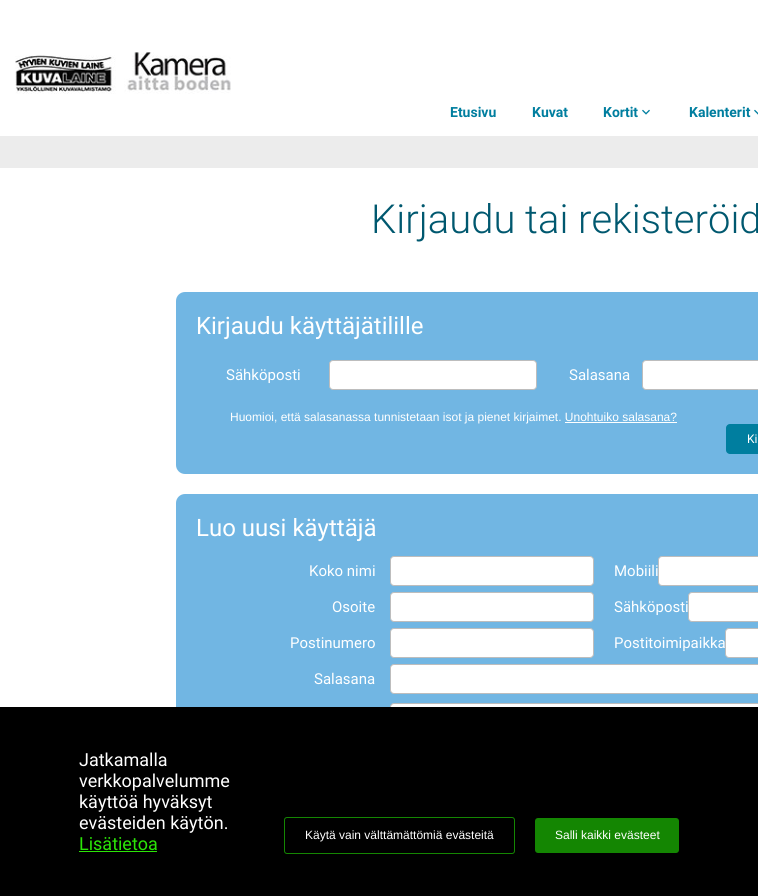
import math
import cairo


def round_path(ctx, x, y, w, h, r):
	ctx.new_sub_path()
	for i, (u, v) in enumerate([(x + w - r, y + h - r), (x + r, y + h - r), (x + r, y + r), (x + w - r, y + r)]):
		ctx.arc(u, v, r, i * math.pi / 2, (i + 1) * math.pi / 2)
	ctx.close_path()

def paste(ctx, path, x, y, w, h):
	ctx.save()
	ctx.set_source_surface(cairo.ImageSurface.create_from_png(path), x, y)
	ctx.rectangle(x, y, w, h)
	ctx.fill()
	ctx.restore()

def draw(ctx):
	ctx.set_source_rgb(0.922, 0.922, 0.922)
	ctx.paint()
	ctx.set_source_rgb(1, 1, 1)
	ctx.rectangle(0, 0, 758, 136)
	ctx.fill()
	paste(ctx, 'media/1.png', 15, 52, 216, 42)
	ctx.select_font_face('Roboto', cairo.FONT_SLANT_NORMAL, cairo.FONT_WEIGHT_BOLD)
	ctx.set_font_size(14)
	ctx.set_source_rgb(0, 0.494, 0.624)
	for x, y, s in [
		(450, 117, 'Etusivu'),
		(532, 117, 'Kuvat'),
		(603, 117, 'Kortit'),
	]:
		ctx.move_to(x, y)
		ctx.show_text(s)
	paste(ctx, 'media/2.png', 642, 109, 8, 6)
	ctx.move_to(689, 117)
	ctx.show_text('Kalenterit')
	paste(ctx, 'media/3.png', 754, 109, 4, 6)
	ctx.set_source_rgb(1, 1, 1)
	ctx.rectangle(0, 168, 758, 539)
	ctx.fill()
	ctx.select_font_face('Roboto Light')
	ctx.set_font_size(40)
	ctx.set_source_rgb(0, 0.345, 0.435)
	ctx.move_to(371, 233)
	ctx.show_text('Kirjaudu tai rekisteröid')
	ctx.set_source_rgb(0.443, 0.714, 0.89)
	round_path(ctx, 176, 292, 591, 182, 9)
	ctx.fill()
	ctx.select_font_face('Roboto')
	ctx.set_font_size(24)
	ctx.set_source_rgb(1, 1, 1)
	ctx.move_to(196, 334)
	ctx.show_text('Kirjaudu käyttäjätilille')
	ctx.set_font_size(15)
	ctx.move_to(226, 380)
	ctx.show_text('Sähköposti')
	round_path(ctx, 329.5, 360.5, 207, 29, 3.5)
	ctx.fill_preserve()
	ctx.set_source_rgb(0.741, 0.741, 0.741)
	ctx.set_line_width(1)
	ctx.stroke()
	ctx.set_source_rgb(1, 1, 1)
	ctx.move_to(569, 380)
	ctx.show_text('Salasana')
	round_path(ctx, 642.5, 360.5, 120, 29, 3.5)
	ctx.fill_preserve()
	ctx.set_source_rgb(0.741, 0.741, 0.741)
	ctx.stroke()
	ctx.select_font_face('Liberation Sans')
	ctx.set_font_size(12)
	ctx.set_source_rgb(1, 1, 1)
	ctx.move_to(230, 421)
	ctx.show_text('Huomioi, että salasanassa tunnistetaan isot ja pienet kirjaimet. Unohtuiko salasana?')
	ctx.rectangle(565, 422, 112, 1)
	ctx.fill()
	ctx.set_source_rgb(0, 0.494, 0.624)
	round_path(ctx, 726, 424, 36, 30, 4)
	ctx.fill()
	ctx.select_font_face('Roboto')
	ctx.set_source_rgb(1, 1, 1)
	ctx.move_to(747, 443)
	ctx.show_text('Ki')
	ctx.set_source_rgb(0.443, 0.714, 0.89)
	round_path(ctx, 176, 494, 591, 356, 9)
	ctx.fill()
	ctx.set_font_size(24)
	ctx.set_source_rgb(1, 1, 1)
	ctx.move_to(196, 536)
	ctx.show_text('Luo uusi käyttäjä')
	ctx.set_font_size(15)
	ctx.move_to(309, 576)
	ctx.show_text('Koko nimi')
	round_path(ctx, 390.5, 556.5, 203, 29, 3.5)
	ctx.fill_preserve()
	ctx.set_source_rgb(0.741, 0.741, 0.741)
	ctx.stroke()
	ctx.set_source_rgb(1, 1, 1)
	ctx.move_to(614, 576)
	ctx.show_text('Mobiili')
	round_path(ctx, 658.5, 556.5, 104, 29, 3.5)
	ctx.fill_preserve()
	ctx.set_source_rgb(0.741, 0.741, 0.741)
	ctx.stroke()
	ctx.set_source_rgb(1, 1, 1)
	ctx.move_to(332, 612)
	ctx.show_text('Osoite')
	round_path(ctx, 390.5, 592.5, 203, 29, 3.5)
	ctx.fill_preserve()
	ctx.set_source_rgb(0.741, 0.741, 0.741)
	ctx.stroke()
	ctx.set_source_rgb(1, 1, 1)
	ctx.move_to(614, 612)
	ctx.show_text('Sähköposti')
	round_path(ctx, 688.5, 592.5, 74, 29, 3.5)
	ctx.fill_preserve()
	ctx.set_source_rgb(0.741, 0.741, 0.741)
	ctx.stroke()
	ctx.set_source_rgb(1, 1, 1)
	ctx.move_to(290, 648)
	ctx.show_text('Postinumero')
	round_path(ctx, 390.5, 628.5, 203, 29, 3.5)
	ctx.fill_preserve()
	ctx.set_source_rgb(0.741, 0.741, 0.741)
	ctx.stroke()
	ctx.set_source_rgb(1, 1, 1)
	ctx.move_to(614, 648)
	ctx.show_text('Postitoimipaikka')
	round_path(ctx, 725.5, 628.5, 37, 29, 3.5)
	ctx.fill_preserve()
	ctx.set_source_rgb(0.741, 0.741, 0.741)
	ctx.stroke()
	ctx.set_source_rgb(1, 1, 1)
	ctx.move_to(314, 684)
	ctx.show_text('Salasana')
	round_path(ctx, 390.5, 664.5, 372, 29, 3.5)
	ctx.fill_preserve()
	ctx.set_source_rgb(0.741, 0.741, 0.741)
	ctx.stroke()
	ctx.set_source_rgb(1, 1, 1)
	round_path(ctx, 390.5, 703.5, 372, 29, 3.5)
	ctx.fill_preserve()
	ctx.set_source_rgb(0.741, 0.741, 0.741)
	ctx.stroke()
	ctx.set_source_rgb(0, 0, 0)
	ctx.rectangle(0, 707, 758, 189)
	ctx.fill()
	ctx.set_font_size(18)
	ctx.set_source_rgb(1, 1, 1)
	for x, y, s in [
		(79, 766, 'Jatkamalla'),
		(79, 787, 'verkkopalvelumme'),
		(79, 808, 'käyttöä hyväksyt'),
		(79, 829, 'evästeiden käytön.'),
	]:
		ctx.move_to(x, y)
		ctx.show_text(s)
	ctx.set_source_rgb(0.169, 0.898, 0.031)
	ctx.move_to(79, 850)
	ctx.show_text('Lisätietoa')
	ctx.rectangle(79, 851, 78, 1)
	ctx.fill()
	round_path(ctx, 284.5, 817.5, 230, 36, 2.5)
	ctx.set_source_rgb(0.082, 0.525, 0.008)
	ctx.stroke()
	ctx.select_font_face('Liberation Sans')
	ctx.set_font_size(12)
	ctx.set_source_rgb(1, 1, 1)
	ctx.move_to(305, 839)
	ctx.show_text('Käytä vain välttämättömiä evästeitä')
	ctx.set_source_rgb(0.082, 0.525, 0.008)
	round_path(ctx, 535, 818, 144, 35, 3)
	ctx.fill()
	ctx.set_source_rgb(1, 1, 1)
	ctx.move_to(555, 839)
	ctx.show_text('Salli kaikki evästeet')


surface = cairo.ImageSurface(cairo.FORMAT_RGB24, 758, 896)
ctx = cairo.Context(surface)
options = cairo.FontOptions()
options.set_hint_metrics(cairo.HINT_METRICS_OFF)
options.set_hint_style(cairo.HINT_STYLE_NONE)
ctx.set_font_options(options)
ctx.set_miter_limit(4)
draw(ctx)
surface.write_to_png('image.png')
